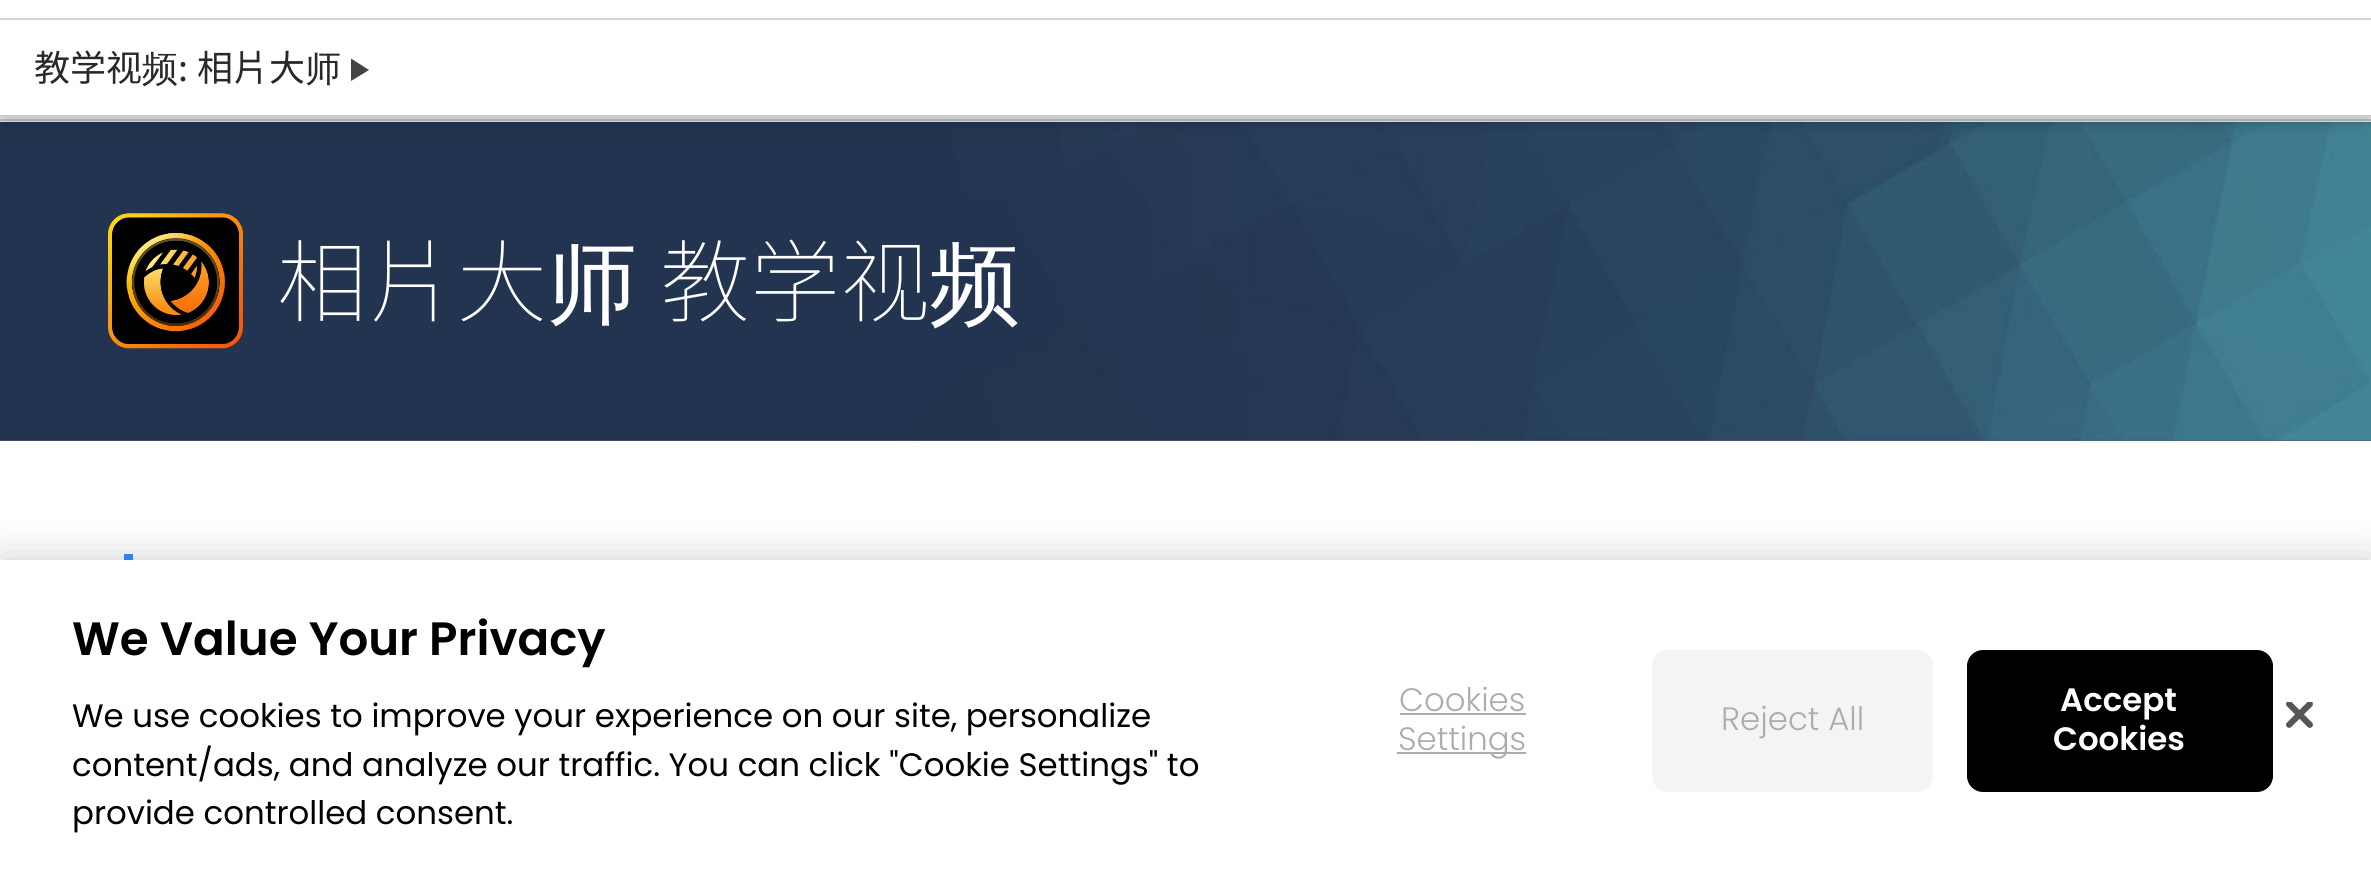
import math
import cairo


def write_spaced(ctx, x, y, s, letter, word):
	ctx.move_to(x, y)
	for ch in s:
		ctx.show_text(ch)
		ctx.rel_move_to(letter + word * (ch == ' '), 0)

def round_path(ctx, x, y, w, h, r):
	ctx.new_sub_path()
	for i, (u, v) in enumerate([(x + w - r, y + h - r), (x + r, y + h - r), (x + r, y + r), (x + w - r, y + r)]):
		ctx.arc(u, v, r, i * math.pi / 2, (i + 1) * math.pi / 2)
	ctx.close_path()

def blur_box(ctx, x, y, w, h, r, blur, alpha):
	ctx.push_group_with_content(cairo.CONTENT_ALPHA)
	ctx.set_operator(cairo.OPERATOR_SOURCE)
	for i in range(15, -16, -2):
		e = blur * i / 6
		if min(w, h) + 2 * e > 0:
			ctx.set_source_rgba(0, 0, 0, alpha * math.erfc((i - 1) / 8.5) / 2)
			round_path(ctx, x - e, y - e, w + 2 * e, h + 2 * e, max(0, min(r + e + blur * .6, min(w, h) / 2 + e)))
			ctx.fill()
	ctx.mask(ctx.pop_group())

def paste(ctx, path, x, y, w, h):
	ctx.save()
	ctx.set_source_surface(cairo.ImageSurface.create_from_png(path), x, y)
	ctx.rectangle(x, y, w, h)
	ctx.fill()
	ctx.restore()

def draw(ctx):
	ctx.set_source_rgb(1, 1, 1)
	ctx.paint()
	ctx.set_source_rgb(0.953, 0.957, 0.961)
	ctx.rectangle(0, 117, 2371, 5)
	ctx.fill()
	ctx.set_source_rgb(0.839, 0.839, 0.839)
	ctx.rectangle(0, 18, 2371, 2)
	ctx.fill()
	ctx.set_source_rgb(0.8, 0.8, 0.8)
	ctx.rectangle(0, 119, 2371, 2)
	ctx.fill()
	ctx.set_source_rgb(0.384, 0.38, 0.416)
	ctx.rectangle(0, 440, 2371, 1)
	ctx.fill()
	paste(ctx, 'media/1.png', 0, 122, 2371, 319)
	ctx.set_source_rgb(0, 0, 0)
	blur_box(ctx, 0, 27, 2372, 97, 0, 5.5, 0.2)
	ctx.set_source_rgb(1, 1, 1)
	ctx.rectangle(0, 20, 2371, 95)
	ctx.fill()
	ctx.set_source_rgb(0.8, 0.8, 0.8)
	ctx.rectangle(0, 115, 2371, 2)
	ctx.fill()
	ctx.select_font_face('Noto Sans TC')
	ctx.set_font_size(36)
	ctx.set_source_rgb(0.161, 0.161, 0.161)
	ctx.move_to(34, 81)
	ctx.show_text('教学视')
	ctx.select_font_face('WenQuanYi Zen Hei Medium')
	ctx.move_to(142, 81)
	ctx.show_text('频')
	ctx.select_font_face('Noto Sans TC')
	write_spaced(ctx, 178, 81, ': 相片大', 0, 1)
	ctx.select_font_face('WenQuanYi Zen Hei Medium')
	ctx.move_to(305, 81)
	ctx.show_text('师')
	ctx.set_source_rgb(0.267, 0.267, 0.267)
	ctx.new_path()
	ctx.move_to(351, 81)
	ctx.line_to(351, 58.5)
	ctx.line_to(369, 70)
	ctx.close_path()
	ctx.fill()
	paste(ctx, 'media/2.png', 108, 213, 135, 136)
	ctx.select_font_face('Noto Sans TC Thin')
	ctx.set_font_size(90)
	ctx.set_source_rgb(1, 1, 1)
	ctx.move_to(277, 315)
	ctx.show_text('相片大')
	ctx.select_font_face('WenQuanYi Zen Hei Medium')
	ctx.move_to(547, 315)
	ctx.show_text('师')
	ctx.select_font_face('Noto Sans TC Thin')
	ctx.move_to(660, 315)
	ctx.show_text('教学视')
	ctx.select_font_face('WenQuanYi Zen Hei Medium')
	ctx.move_to(930, 315)
	ctx.show_text('频')
	ctx.set_source_rgb(0.196, 0.561, 1)
	ctx.rectangle(124, 554, 9, 6)
	ctx.fill()
	ctx.set_source_rgb(0, 0, 0)
	blur_box(ctx, 0, 560, 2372, 324, 0, 20, 0.2)
	ctx.set_source_rgb(1, 1, 1)
	ctx.rectangle(0, 560, 2371, 324)
	ctx.fill()
	ctx.select_font_face('Poppins SemiBold')
	ctx.set_font_size(46.75)
	ctx.set_source_rgb(0, 0, 0)
	ctx.move_to(72, 655)
	ctx.show_text('We Value Your Privacy')
	ctx.select_font_face('Poppins')
	ctx.set_font_size(32.4)
	for x, y, s in [
		(72, 727, 'We use cookies to improve your experience on our site, personalize'),
		(72, 776, 'content/ads, and analyze our traffic. You can click "Cookie Settings" to'),
		(72, 824, 'provide controlled consent.'),
	]:
		ctx.move_to(x, y)
		ctx.show_text(s)
	ctx.select_font_face('Poppins Light')
	ctx.set_source_rgb(0.678, 0.678, 0.678)
	ctx.move_to(1399, 711)
	ctx.show_text('Cookies')
	ctx.rectangle(1400, 713, 126, 2)
	ctx.fill()
	ctx.rectangle(1397, 752, 129, 2)
	ctx.fill()
	ctx.move_to(1398, 750)
	ctx.show_text('Settings')
	ctx.set_source_rgb(0.957, 0.957, 0.957)
	round_path(ctx, 1652, 650, 281, 142, 16)
	ctx.fill()
	ctx.set_source_rgb(0.678, 0.678, 0.678)
	ctx.move_to(1721, 730)
	ctx.show_text('Reject All')
	ctx.set_source_rgb(0, 0, 0)
	round_path(ctx, 1968, 651, 304, 140, 15)
	ctx.fill_preserve()
	ctx.stroke()
	ctx.select_font_face('Poppins SemiBold')
	ctx.set_source_rgb(1, 1, 1)
	ctx.move_to(2060, 711)
	ctx.show_text('Accept')
	ctx.move_to(2053, 750)
	ctx.show_text('Cookies')
	paste(ctx, 'media/3.png', 2286, 702, 27, 26)


surface = cairo.ImageSurface(cairo.FORMAT_RGB24, 2371, 884)
ctx = cairo.Context(surface)
options = cairo.FontOptions()
options.set_hint_metrics(cairo.HINT_METRICS_OFF)
options.set_hint_style(cairo.HINT_STYLE_NONE)
ctx.set_font_options(options)
ctx.set_miter_limit(4)
draw(ctx)
surface.write_to_png('image.png')
